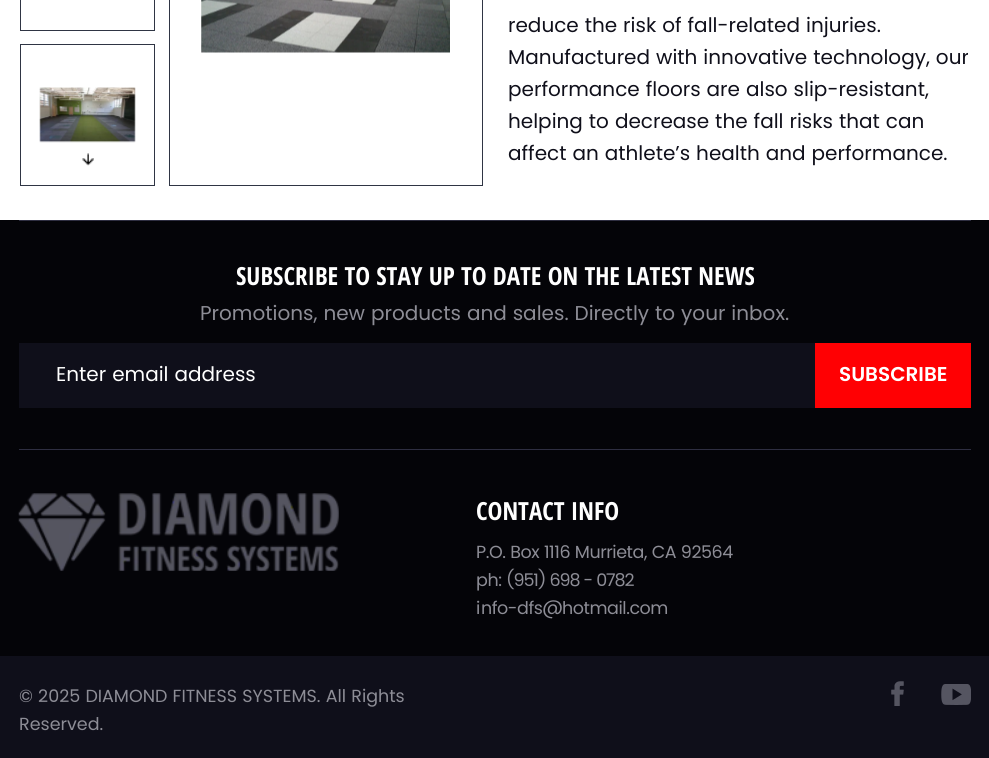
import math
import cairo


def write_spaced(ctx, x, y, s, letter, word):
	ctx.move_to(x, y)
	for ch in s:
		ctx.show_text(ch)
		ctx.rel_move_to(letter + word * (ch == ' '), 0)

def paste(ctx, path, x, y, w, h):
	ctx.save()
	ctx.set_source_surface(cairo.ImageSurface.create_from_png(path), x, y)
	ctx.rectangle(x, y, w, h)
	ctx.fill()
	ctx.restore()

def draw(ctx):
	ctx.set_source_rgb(1, 1, 1)
	ctx.paint()
	ctx.rectangle(20.5, -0.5, 134, 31)
	ctx.set_source_rgb(0.184, 0.208, 0.267)
	ctx.set_line_width(1)
	ctx.stroke()
	ctx.rectangle(20.5, 44.5, 134, 141)
	ctx.stroke()
	paste(ctx, 'media/1.png', 39, 87, 97, 56)
	paste(ctx, 'media/2.png', 82, 153, 12, 13)
	ctx.rectangle(169.5, -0.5, 313, 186)
	ctx.stroke()
	paste(ctx, 'media/3.png', 201, 0, 249, 53)
	ctx.select_font_face('Poppins')
	ctx.set_font_size(20)
	ctx.set_source_rgb(0.059, 0.059, 0.102)
	for x, y, s in [
		(508, 32, 'reduce the risk of fall-related injuries.'),
		(508, 64, 'Manufactured with innovative technology, our'),
		(508, 96, 'performance floors are also slip-resistant,'),
		(508, 128, 'helping to decrease the fall risks that can'),
		(508, 160, 'affect an athlete’s health and performance.'),
	]:
		ctx.move_to(x, y)
		ctx.show_text(s)
	ctx.set_source_rgb(0.016, 0.016, 0.035)
	ctx.rectangle(0, 220, 989, 436)
	ctx.fill()
	ctx.set_source_rgb(0.18, 0.18, 0.255)
	ctx.rectangle(19, 220, 952, 1)
	ctx.fill()
	ctx.select_font_face('Open Sans Condensed', cairo.FONT_SLANT_NORMAL, cairo.FONT_WEIGHT_BOLD)
	ctx.set_font_size(25)
	ctx.set_source_rgb(1, 1, 1)
	ctx.move_to(236, 285)
	ctx.show_text('SUBSCRIBE TO STAY UP TO DATE ON THE LATEST NEWS')
	ctx.select_font_face('Poppins')
	ctx.set_font_size(20)
	ctx.set_source_rgb(0.553, 0.553, 0.588)
	ctx.move_to(200, 320)
	ctx.show_text('Promotions, new products and sales. Directly to your inbox.')
	ctx.set_source_rgb(0.059, 0.059, 0.102)
	ctx.rectangle(19, 343, 796, 65)
	ctx.fill()
	ctx.set_source_rgb(1, 1, 1)
	ctx.move_to(56, 381)
	ctx.show_text('Enter email address')
	ctx.set_source_rgb(1, 0, 0.012)
	ctx.rectangle(815, 343, 156, 65)
	ctx.fill()
	ctx.select_font_face('Poppins SemiBold')
	ctx.set_source_rgb(1, 1, 1)
	ctx.move_to(839, 381)
	ctx.show_text('SUBSCRIBE')
	ctx.set_source_rgb(0.18, 0.18, 0.255)
	ctx.rectangle(19, 449, 952, 1)
	ctx.fill()
	paste(ctx, 'media/4.png', 18, 493, 321, 78)
	ctx.select_font_face('Open Sans Condensed', cairo.FONT_SLANT_NORMAL, cairo.FONT_WEIGHT_BOLD)
	ctx.set_font_size(25)
	ctx.set_source_rgb(1, 1, 1)
	ctx.move_to(476, 520)
	ctx.show_text('CONTACT INFO')
	ctx.select_font_face('Poppins')
	ctx.set_font_size(17.5)
	ctx.set_source_rgb(0.553, 0.553, 0.588)
	write_spaced(ctx, 476, 558, 'P.O. Box 1116 Murrieta, CA 92564', -0.45, 0)
	write_spaced(ctx, 476, 586, 'ph:', -0.45, 0)
	write_spaced(ctx, 506, 586, '(951) 698 - 0782', -1.1, 0)
	ctx.move_to(476, 614)
	ctx.show_text('i')
	write_spaced(ctx, 481, 614, 'nfo-dfs@hotmail.com', -0.45, 0)
	ctx.set_source_rgb(0.059, 0.059, 0.102)
	ctx.rectangle(0, 656, 989, 102)
	ctx.fill()
	ctx.set_source_rgb(0.553, 0.553, 0.588)
	ctx.move_to(19, 702)
	ctx.show_text('© 2025 DIAMOND FITNESS SYSTEMS. All Rights')
	ctx.move_to(19, 730)
	ctx.show_text('Reserved.')
	paste(ctx, 'media/5.png', 891, 681, 13, 25)
	paste(ctx, 'media/6.png', 941, 684, 30, 21)


surface = cairo.ImageSurface(cairo.FORMAT_RGB24, 989, 758)
ctx = cairo.Context(surface)
options = cairo.FontOptions()
options.set_hint_metrics(cairo.HINT_METRICS_OFF)
options.set_hint_style(cairo.HINT_STYLE_NONE)
ctx.set_font_options(options)
ctx.set_miter_limit(4)
draw(ctx)
surface.write_to_png('image.png')
